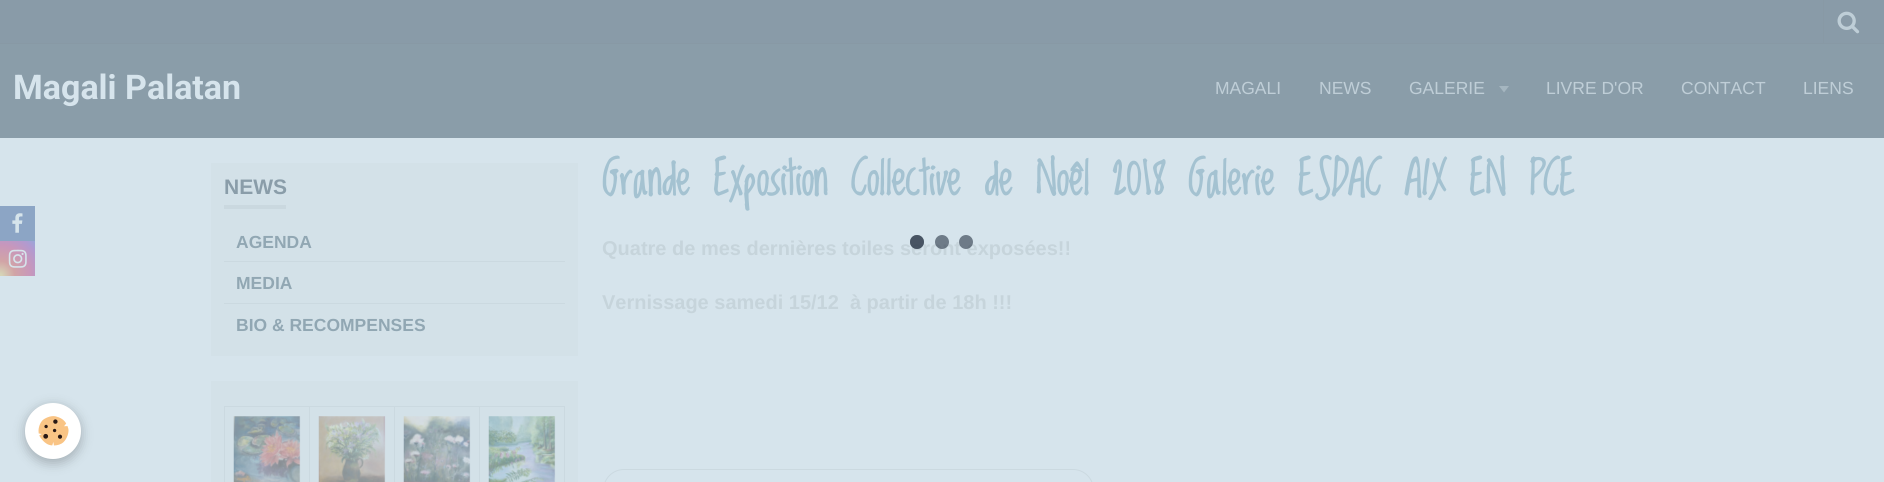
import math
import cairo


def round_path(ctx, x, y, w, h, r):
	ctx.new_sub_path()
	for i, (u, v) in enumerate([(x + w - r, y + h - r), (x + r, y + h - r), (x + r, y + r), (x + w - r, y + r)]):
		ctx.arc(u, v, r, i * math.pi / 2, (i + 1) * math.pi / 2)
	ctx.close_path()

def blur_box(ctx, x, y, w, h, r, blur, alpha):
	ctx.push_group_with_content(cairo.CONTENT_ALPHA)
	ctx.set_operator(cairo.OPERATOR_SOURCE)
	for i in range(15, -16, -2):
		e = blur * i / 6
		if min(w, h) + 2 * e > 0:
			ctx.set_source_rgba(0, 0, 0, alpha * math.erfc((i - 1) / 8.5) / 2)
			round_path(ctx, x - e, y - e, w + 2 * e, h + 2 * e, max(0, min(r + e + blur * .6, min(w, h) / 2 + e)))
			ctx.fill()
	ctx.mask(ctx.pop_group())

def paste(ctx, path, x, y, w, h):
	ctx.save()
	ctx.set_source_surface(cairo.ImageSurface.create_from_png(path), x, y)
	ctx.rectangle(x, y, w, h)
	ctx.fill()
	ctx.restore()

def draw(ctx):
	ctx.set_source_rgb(0.839, 0.894, 0.922)
	ctx.paint()
	ctx.set_source_rgb(0.541, 0.616, 0.663)
	ctx.rectangle(0, 44, 1884, 94)
	ctx.fill()
	ctx.set_source_rgb(0.537, 0.608, 0.659)
	ctx.rectangle(0, 0, 1884, 43)
	ctx.fill()
	ctx.set_source_rgb(0.533, 0.6, 0.647)
	ctx.rectangle(0, 43, 1884, 1)
	ctx.rectangle(1823, 0, 1, 43)
	ctx.fill()
	paste(ctx, 'media/1.png', 1837, 11, 23, 23)
	ctx.select_font_face('Roboto', cairo.FONT_SLANT_NORMAL, cairo.FONT_WEIGHT_BOLD)
	ctx.set_font_size(34)
	ctx.set_source_rgb(0.839, 0.894, 0.922)
	ctx.move_to(13, 99)
	ctx.show_text('Magali Palatan')
	ctx.select_font_face('Liberation Sans')
	ctx.set_font_size(17.5)
	ctx.set_source_rgb(0.749, 0.808, 0.843)
	for x, y, s in [
		(1215, 94, 'MAGALI'),
		(1319, 94, 'NEWS'),
		(1409, 94, 'GALERIE'),
	]:
		ctx.move_to(x, y)
		ctx.show_text(s)
	ctx.set_source_rgb(0.647, 0.714, 0.753)
	ctx.new_path()
	ctx.move_to(1499, 86)
	ctx.line_to(1509, 86)
	ctx.line_to(1504, 92.5)
	ctx.close_path()
	ctx.fill()
	ctx.set_source_rgb(0.749, 0.808, 0.843)
	for x, y, s in [
		(1546, 94, 'LIVRE D\'OR'),
		(1681, 94, 'CONTACT'),
		(1803, 94, 'LIENS'),
	]:
		ctx.move_to(x, y)
		ctx.show_text(s)
	ctx.set_source_rgb(0.549, 0.647, 0.773)
	ctx.rectangle(0, 206, 35, 35)
	ctx.fill()
	paste(ctx, 'media/2.png', 12, 213, 11, 20)
	gradient = cairo.RadialGradient(-0.2, 276, 0, -0.2, 276, 50)
	gradient.add_color_stop_rgba(0.04, 0.839, 0.831, 0.718, 1)
	gradient.add_color_stop_rgba(0.3, 0.82, 0.643, 0.651, 1)
	gradient.add_color_stop_rgba(0.62, 0.784, 0.592, 0.733, 1)
	gradient.add_color_stop_rgba(0.85, 0.694, 0.604, 0.816, 1)
	gradient.add_color_stop_rgba(1, 0.588, 0.659, 0.851, 1)
	ctx.set_source(gradient)
	ctx.rectangle(0, 241, 35, 35)
	ctx.fill()
	paste(ctx, 'media/3.png', 8, 249, 19, 19)
	ctx.set_source_rgb(0.827, 0.882, 0.91)
	ctx.rectangle(211, 163, 367, 193)
	ctx.fill()
	ctx.set_source_rgb(0.792, 0.847, 0.875)
	ctx.rectangle(224, 205, 62, 4)
	ctx.fill()
	ctx.select_font_face('Liberation Sans', cairo.FONT_SLANT_NORMAL, cairo.FONT_WEIGHT_BOLD)
	ctx.set_font_size(21)
	ctx.set_source_rgb(0.541, 0.616, 0.663)
	ctx.move_to(224, 194)
	ctx.show_text('NEWS')
	ctx.set_source_rgb(0.796, 0.851, 0.878)
	ctx.rectangle(224, 261, 341, 1)
	ctx.fill()
	ctx.set_font_size(17.5)
	ctx.set_source_rgb(0.569, 0.655, 0.702)
	ctx.move_to(236, 248)
	ctx.show_text('AGENDA')
	ctx.set_source_rgb(0.796, 0.851, 0.878)
	ctx.rectangle(224, 303, 341, 1)
	ctx.fill()
	ctx.set_source_rgb(0.569, 0.655, 0.702)
	ctx.move_to(236, 289)
	ctx.show_text('MEDIA')
	ctx.move_to(236, 331)
	ctx.show_text('BIO & RECOMPENSES')
	ctx.set_source_rgb(0.827, 0.882, 0.91)
	ctx.rectangle(211, 381, 367, 101)
	ctx.fill()
	ctx.set_source_rgb(0.796, 0.851, 0.878)
	ctx.rectangle(224, 406, 1, 76)
	ctx.rectangle(225, 406, 340, 1)
	ctx.rectangle(309, 406, 1, 76)
	ctx.fill()
	paste(ctx, 'media/4.png', 233, 416, 68, 66)
	ctx.rectangle(394, 406, 1, 76)
	ctx.fill()
	paste(ctx, 'media/5.png', 318, 416, 68, 66)
	ctx.rectangle(479, 406, 1, 76)
	ctx.fill()
	paste(ctx, 'media/6.png', 403, 416, 68, 66)
	ctx.rectangle(564, 406, 1, 76)
	ctx.fill()
	paste(ctx, 'media/7.png', 488, 416, 68, 66)
	ctx.select_font_face('Loved by the King', cairo.FONT_SLANT_NORMAL, cairo.FONT_WEIGHT_BOLD)
	ctx.set_font_size(45)
	ctx.set_source_rgb(0.643, 0.761, 0.82)
	ctx.move_to(602, 195)
	ctx.show_text('Grande Exposition Collective de Noêl 2018 Galerie ESDAC AIX EN PCE')
	ctx.select_font_face('Liberation Sans', cairo.FONT_SLANT_NORMAL, cairo.FONT_WEIGHT_BOLD)
	ctx.set_font_size(20)
	ctx.set_source_rgb(0.776, 0.831, 0.859)
	ctx.move_to(602, 255)
	ctx.show_text('Quatre de mes dernières toiles seront exposées!!')
	ctx.move_to(602, 309)
	ctx.show_text('Vernissage samedi 15/12  à partir de 18h !!!')
	round_path(ctx, 603.5, 469.5, 490, 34, 20.5)
	ctx.set_source_rgb(0.796, 0.851, 0.878)
	ctx.set_line_width(1)
	ctx.stroke()
	ctx.set_source_rgba(0.196, 0.243, 0.306, 0.63)
	ctx.arc(917, 242, 7, 0, 2 * math.pi)
	ctx.fill()
	ctx.arc(917, 242, 7, 0, 2 * math.pi)
	ctx.fill()
	ctx.arc(942, 242, 7, 0, 2 * math.pi)
	ctx.fill()
	ctx.arc(966, 242, 7, 0, 2 * math.pi)
	ctx.fill()
	ctx.set_source_rgb(0, 0, 0)
	blur_box(ctx, 25, 406, 56, 57, 28, 6, 0.24)
	ctx.set_source_rgb(1, 1, 1)
	ctx.arc(53, 431, 28, 0, 2 * math.pi)
	ctx.fill()
	paste(ctx, 'media/8.png', 38, 416, 31, 30)


surface = cairo.ImageSurface(cairo.FORMAT_RGB24, 1884, 482)
ctx = cairo.Context(surface)
options = cairo.FontOptions()
options.set_hint_metrics(cairo.HINT_METRICS_OFF)
options.set_hint_style(cairo.HINT_STYLE_NONE)
ctx.set_font_options(options)
ctx.set_miter_limit(4)
draw(ctx)
surface.write_to_png('image.png')
